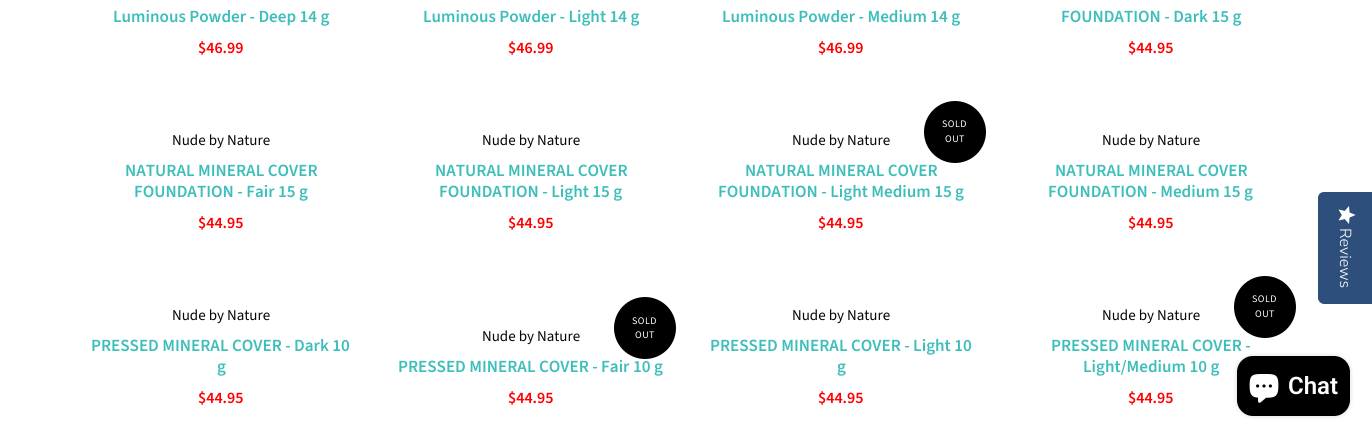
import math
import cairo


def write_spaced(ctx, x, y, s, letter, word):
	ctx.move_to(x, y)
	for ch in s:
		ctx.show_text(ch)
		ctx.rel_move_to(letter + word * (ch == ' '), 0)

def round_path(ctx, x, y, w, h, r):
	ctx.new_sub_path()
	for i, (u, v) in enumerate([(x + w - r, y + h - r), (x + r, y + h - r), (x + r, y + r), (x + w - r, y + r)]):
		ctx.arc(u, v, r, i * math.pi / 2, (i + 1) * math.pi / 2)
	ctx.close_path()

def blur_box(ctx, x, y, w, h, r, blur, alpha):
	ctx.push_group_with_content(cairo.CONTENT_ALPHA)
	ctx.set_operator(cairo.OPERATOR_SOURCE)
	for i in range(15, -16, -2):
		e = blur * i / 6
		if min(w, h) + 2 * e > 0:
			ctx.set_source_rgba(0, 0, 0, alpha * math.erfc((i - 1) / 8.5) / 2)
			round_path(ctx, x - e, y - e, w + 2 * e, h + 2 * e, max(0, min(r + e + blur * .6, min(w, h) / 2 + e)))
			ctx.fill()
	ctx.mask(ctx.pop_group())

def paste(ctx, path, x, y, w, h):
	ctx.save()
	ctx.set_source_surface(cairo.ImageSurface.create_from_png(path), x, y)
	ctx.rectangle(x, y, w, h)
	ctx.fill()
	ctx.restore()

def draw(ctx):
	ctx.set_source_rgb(1, 1, 1)
	ctx.paint()
	ctx.select_font_face('Source Sans Pro SemiBold')
	ctx.set_font_size(17.1)
	ctx.set_source_rgb(0.243, 0.745, 0.729)
	ctx.move_to(113, 22)
	ctx.show_text('Luminous Powder - Deep 14 g')
	ctx.set_font_size(16)
	ctx.set_source_rgb(1, 0, 0)
	ctx.move_to(198, 53)
	ctx.show_text('$46.99')
	ctx.set_font_size(17.1)
	ctx.set_source_rgb(0.243, 0.745, 0.729)
	ctx.move_to(423, 22)
	ctx.show_text('Luminous Powder - Light 14 g')
	ctx.set_font_size(16)
	ctx.set_source_rgb(1, 0, 0)
	ctx.move_to(508, 53)
	ctx.show_text('$46.99')
	ctx.set_font_size(17.1)
	ctx.set_source_rgb(0.243, 0.745, 0.729)
	ctx.move_to(722, 22)
	ctx.show_text('Luminous Powder - Medium 14 g')
	ctx.set_font_size(16)
	ctx.set_source_rgb(1, 0, 0)
	ctx.move_to(818, 53)
	ctx.show_text('$46.99')
	ctx.set_font_size(17.1)
	ctx.set_source_rgb(0.243, 0.745, 0.729)
	ctx.move_to(1061, 22)
	ctx.show_text('FOUNDATION - Dark 15 g')
	ctx.set_font_size(16)
	ctx.set_source_rgb(1, 0, 0)
	ctx.move_to(1128, 53)
	ctx.show_text('$44.95')
	ctx.select_font_face('Source Sans Pro')
	ctx.set_font_size(15)
	ctx.set_source_rgb(0.031, 0.031, 0.031)
	ctx.move_to(172, 145)
	ctx.show_text('Nude by Nature')
	ctx.select_font_face('Source Sans Pro SemiBold')
	ctx.set_font_size(17.1)
	ctx.set_source_rgb(0.243, 0.745, 0.729)
	ctx.move_to(125, 176)
	ctx.show_text('NATURAL MINERAL COVER')
	ctx.move_to(134, 197)
	ctx.show_text('FOUNDATION - Fair 15 g')
	ctx.set_font_size(16)
	ctx.set_source_rgb(1, 0, 0)
	ctx.move_to(198, 228)
	ctx.show_text('$44.95')
	ctx.select_font_face('Source Sans Pro')
	ctx.set_font_size(15)
	ctx.set_source_rgb(0.031, 0.031, 0.031)
	ctx.move_to(482, 145)
	ctx.show_text('Nude by Nature')
	ctx.select_font_face('Source Sans Pro SemiBold')
	ctx.set_font_size(17.1)
	ctx.set_source_rgb(0.243, 0.745, 0.729)
	ctx.move_to(435, 176)
	ctx.show_text('NATURAL MINERAL COVER')
	ctx.move_to(439, 197)
	ctx.show_text('FOUNDATION - Light 15 g')
	ctx.set_font_size(16)
	ctx.set_source_rgb(1, 0, 0)
	ctx.move_to(508, 228)
	ctx.show_text('$44.95')
	ctx.set_source_rgb(0, 0, 0)
	ctx.new_path()
	ctx.arc(955, 132, 31, 0, 2 * math.pi)
	ctx.fill()
	ctx.select_font_face('Source Sans Pro')
	ctx.set_font_size(10)
	ctx.set_source_rgb(1, 1, 1)
	write_spaced(ctx, 942, 127, 'SOLD', 0.5, 0)
	write_spaced(ctx, 945, 142, 'OUT', 0.5, 0)
	ctx.set_font_size(15)
	ctx.set_source_rgb(0.031, 0.031, 0.031)
	ctx.move_to(792, 145)
	ctx.show_text('Nude by Nature')
	ctx.select_font_face('Source Sans Pro SemiBold')
	ctx.set_font_size(17.1)
	ctx.set_source_rgb(0.243, 0.745, 0.729)
	ctx.move_to(745, 176)
	ctx.show_text('NATURAL MINERAL COVER')
	ctx.move_to(718, 197)
	ctx.show_text('FOUNDATION - Light Medium 15 g')
	ctx.set_font_size(16)
	ctx.set_source_rgb(1, 0, 0)
	ctx.move_to(818, 228)
	ctx.show_text('$44.95')
	ctx.select_font_face('Source Sans Pro')
	ctx.set_font_size(15)
	ctx.set_source_rgb(0.031, 0.031, 0.031)
	ctx.move_to(1102, 145)
	ctx.show_text('Nude by Nature')
	ctx.select_font_face('Source Sans Pro SemiBold')
	ctx.set_font_size(17.1)
	ctx.set_source_rgb(0.243, 0.745, 0.729)
	ctx.move_to(1055, 176)
	ctx.show_text('NATURAL MINERAL COVER')
	ctx.move_to(1048, 197)
	ctx.show_text('FOUNDATION - Medium 15 g')
	ctx.set_font_size(16)
	ctx.set_source_rgb(1, 0, 0)
	ctx.move_to(1128, 228)
	ctx.show_text('$44.95')
	ctx.select_font_face('Source Sans Pro')
	ctx.set_font_size(15)
	ctx.set_source_rgb(0.031, 0.031, 0.031)
	ctx.move_to(172, 320)
	ctx.show_text('Nude by Nature')
	ctx.select_font_face('Source Sans Pro SemiBold')
	ctx.set_font_size(17.1)
	ctx.set_source_rgb(0.243, 0.745, 0.729)
	ctx.move_to(91, 351)
	ctx.show_text('PRESSED MINERAL COVER - Dark 10')
	ctx.move_to(217, 372)
	ctx.show_text('g')
	ctx.set_font_size(16)
	ctx.set_source_rgb(1, 0, 0)
	ctx.move_to(198, 403)
	ctx.show_text('$44.95')
	ctx.set_source_rgb(0, 0, 0)
	ctx.new_path()
	ctx.arc(645, 328, 31, 0, 2 * math.pi)
	ctx.fill()
	ctx.select_font_face('Source Sans Pro')
	ctx.set_font_size(10)
	ctx.set_source_rgb(1, 1, 1)
	write_spaced(ctx, 632, 324, 'SOLD', 0.5, 0)
	write_spaced(ctx, 635, 338, 'OUT', 0.5, 0)
	ctx.set_font_size(15)
	ctx.set_source_rgb(0.031, 0.031, 0.031)
	ctx.move_to(482, 341)
	ctx.show_text('Nude by Nature')
	ctx.select_font_face('Source Sans Pro SemiBold')
	ctx.set_font_size(17.1)
	ctx.set_source_rgb(0.243, 0.745, 0.729)
	ctx.move_to(398, 372)
	ctx.show_text('PRESSED MINERAL COVER - Fair 10 g')
	ctx.set_font_size(16)
	ctx.set_source_rgb(1, 0, 0)
	ctx.move_to(508, 403)
	ctx.show_text('$44.95')
	ctx.select_font_face('Source Sans Pro')
	ctx.set_font_size(15)
	ctx.set_source_rgb(0.031, 0.031, 0.031)
	ctx.move_to(792, 320)
	ctx.show_text('Nude by Nature')
	ctx.select_font_face('Source Sans Pro SemiBold')
	ctx.set_font_size(17.1)
	ctx.set_source_rgb(0.243, 0.745, 0.729)
	ctx.move_to(710, 351)
	ctx.show_text('PRESSED MINERAL COVER - Light 10')
	ctx.move_to(837, 372)
	ctx.show_text('g')
	ctx.set_font_size(16)
	ctx.set_source_rgb(1, 0, 0)
	ctx.move_to(818, 403)
	ctx.show_text('$44.95')
	ctx.set_source_rgb(0, 0, 0)
	ctx.new_path()
	ctx.arc(1265, 307, 31, 0, 2 * math.pi)
	ctx.fill()
	ctx.select_font_face('Source Sans Pro')
	ctx.set_font_size(10)
	ctx.set_source_rgb(1, 1, 1)
	write_spaced(ctx, 1252, 302, 'SOLD', 0.5, 0)
	write_spaced(ctx, 1255, 317, 'OUT', 0.5, 0)
	ctx.set_font_size(15)
	ctx.set_source_rgb(0.031, 0.031, 0.031)
	ctx.move_to(1102, 320)
	ctx.show_text('Nude by Nature')
	ctx.select_font_face('Source Sans Pro SemiBold')
	ctx.set_font_size(17.1)
	ctx.set_source_rgb(0.243, 0.745, 0.729)
	ctx.move_to(1051, 351)
	ctx.show_text('PRESSED MINERAL COVER -')
	ctx.move_to(1083, 372)
	ctx.show_text('Light/Medium 10 g')
	ctx.set_font_size(16)
	ctx.set_source_rgb(1, 0, 0)
	ctx.move_to(1128, 403)
	ctx.show_text('$44.95')
	ctx.set_source_rgb(0.18, 0.31, 0.486)
	ctx.new_path()
	ctx.move_to(1372, 192)
	ctx.line_to(1372, 304)
	ctx.line_to(1324, 304)
	ctx.curve_to(1321, 304, 1318, 301, 1318, 298)
	ctx.line_to(1318, 198)
	ctx.curve_to(1318, 194, 1321, 192, 1324, 192)
	ctx.close_path()
	ctx.fill()
	paste(ctx, 'media/1.png', 1338, 206, 18, 18)
	ctx.select_font_face('Nunito Sans Light')
	ctx.set_source_rgb(1, 1, 1)
	ctx.save()
	ctx.translate(1340, 228)
	ctx.rotate(90 * math.pi / 180)
	ctx.move_to(0, 0)
	ctx.show_text('Reviews')
	ctx.restore()
	ctx.set_source_rgb(0, 0, 0)
	blur_box(ctx, 1237, 356, 113, 60, 16, 2.5, 0.15)
	ctx.set_source_rgb(0, 0, 0)
	round_path(ctx, 1237, 356, 113, 60, 16)
	ctx.fill()
	paste(ctx, 'media/2.png', 1249, 374, 30, 29)
	ctx.select_font_face('Roboto SemiBold')
	ctx.set_font_size(24)
	ctx.set_source_rgb(1, 1, 1)
	ctx.move_to(1288, 394)
	ctx.show_text('Chat')


surface = cairo.ImageSurface(cairo.FORMAT_RGB24, 1372, 437)
ctx = cairo.Context(surface)
options = cairo.FontOptions()
options.set_hint_metrics(cairo.HINT_METRICS_OFF)
options.set_hint_style(cairo.HINT_STYLE_NONE)
ctx.set_font_options(options)
ctx.set_miter_limit(4)
draw(ctx)
surface.write_to_png('image.png')
